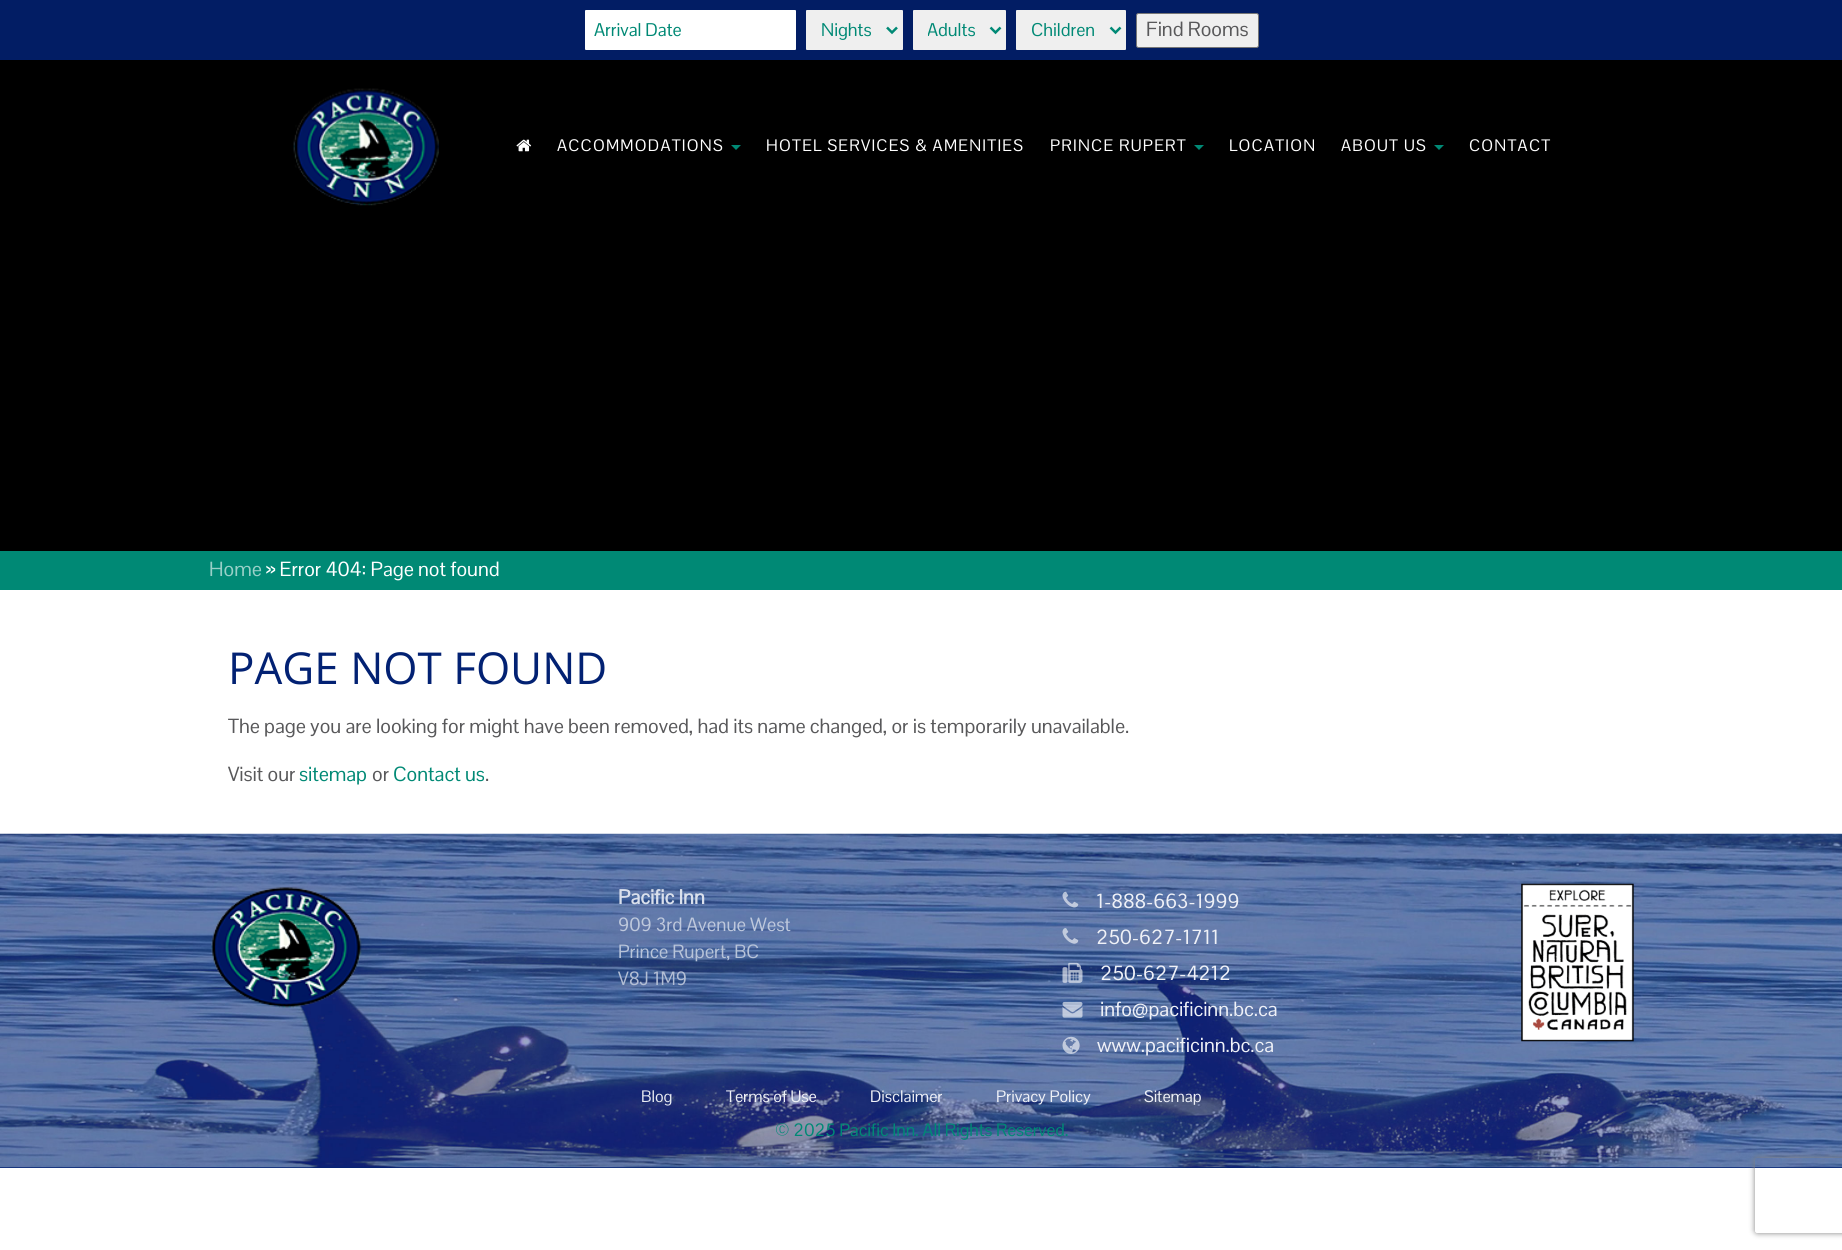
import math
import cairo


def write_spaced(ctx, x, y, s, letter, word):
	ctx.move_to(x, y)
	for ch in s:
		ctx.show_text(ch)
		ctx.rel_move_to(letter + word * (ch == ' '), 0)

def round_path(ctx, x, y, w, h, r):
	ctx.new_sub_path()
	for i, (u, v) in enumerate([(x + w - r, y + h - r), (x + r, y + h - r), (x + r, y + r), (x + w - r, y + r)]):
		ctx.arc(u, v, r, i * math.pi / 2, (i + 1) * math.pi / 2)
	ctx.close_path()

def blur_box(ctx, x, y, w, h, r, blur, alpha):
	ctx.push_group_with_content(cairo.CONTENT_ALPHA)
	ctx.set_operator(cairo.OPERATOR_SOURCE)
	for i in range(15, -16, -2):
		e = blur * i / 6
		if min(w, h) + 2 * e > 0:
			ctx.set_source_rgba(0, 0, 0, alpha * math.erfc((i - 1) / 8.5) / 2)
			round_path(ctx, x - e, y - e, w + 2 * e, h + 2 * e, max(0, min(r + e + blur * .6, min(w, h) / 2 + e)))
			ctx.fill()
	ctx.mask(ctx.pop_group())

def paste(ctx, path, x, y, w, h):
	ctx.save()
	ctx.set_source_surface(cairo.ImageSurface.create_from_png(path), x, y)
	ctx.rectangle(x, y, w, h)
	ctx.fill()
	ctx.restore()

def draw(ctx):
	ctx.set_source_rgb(1, 1, 1)
	ctx.paint()
	ctx.set_source_rgb(0.008, 0.114, 0.392)
	ctx.rectangle(0, 0, 1842, 60)
	ctx.fill()
	ctx.set_source_rgb(1, 1, 1)
	round_path(ctx, 585, 10, 211, 40, 1)
	ctx.fill()
	ctx.select_font_face('Pontano Sans')
	ctx.set_font_size(18)
	ctx.set_source_rgb(0, 0.537, 0.459)
	ctx.move_to(594, 36)
	ctx.show_text('Arrival Date')
	ctx.set_source_rgb(0.937, 0.937, 0.937)
	round_path(ctx, 806, 10, 97, 40, 1)
	ctx.fill()
	ctx.new_path()
	ctx.move_to(887, 27.5)
	ctx.line_to(892, 32.5)
	ctx.line_to(897, 27.5)
	ctx.set_source_rgb(0, 0.537, 0.459)
	ctx.set_line_width(2.5)
	ctx.stroke()
	ctx.move_to(821, 36)
	ctx.show_text('Nights')
	ctx.set_source_rgb(0.937, 0.937, 0.937)
	round_path(ctx, 913, 10, 93, 40, 1)
	ctx.fill()
	ctx.new_path()
	ctx.move_to(990.5, 27.5)
	ctx.line_to(995.5, 32.5)
	ctx.line_to(1000.5, 27.5)
	ctx.set_source_rgb(0, 0.537, 0.459)
	ctx.stroke()
	ctx.save()
	ctx.rectangle(928, 18, 48, 25)
	ctx.clip()
	ctx.move_to(927, 36)
	ctx.show_text('Adults')
	ctx.restore()
	ctx.set_source_rgb(0.937, 0.937, 0.937)
	round_path(ctx, 1016, 10, 110, 40, 1)
	ctx.fill()
	ctx.new_path()
	ctx.move_to(1110.5, 27.5)
	ctx.line_to(1115.5, 32.5)
	ctx.line_to(1120.5, 27.5)
	ctx.set_source_rgb(0, 0.537, 0.459)
	ctx.stroke()
	ctx.move_to(1031, 36)
	ctx.show_text('Children')
	ctx.set_source_rgb(0.937, 0.937, 0.937)
	round_path(ctx, 1136.5, 13.5, 122, 34, 2)
	ctx.fill_preserve()
	ctx.set_source_rgb(0.463, 0.463, 0.463)
	ctx.set_line_width(1)
	ctx.stroke()
	ctx.set_font_size(20)
	ctx.set_source_rgb(0.345, 0.345, 0.353)
	ctx.move_to(1146, 36)
	ctx.show_text('Find Rooms')
	ctx.set_source_rgb(0, 0, 0)
	ctx.rectangle(0, 60, 1842, 491)
	ctx.fill()
	paste(ctx, 'media/1.png', 293, 88, 146, 118)
	paste(ctx, 'media/2.png', 516, 139, 16, 13)
	ctx.set_font_size(16.25)
	ctx.set_source_rgb(1, 1, 1)
	write_spaced(ctx, 557, 151, 'ACCOMMODATIONS', 1.25, 0)
	ctx.set_source_rgb(0, 0.537, 0.459)
	ctx.new_path()
	ctx.move_to(731, 145)
	ctx.line_to(741, 145)
	ctx.line_to(736, 150)
	ctx.close_path()
	ctx.fill()
	ctx.set_source_rgb(1, 1, 1)
	write_spaced(ctx, 766, 151, 'HOTEL SERVICES & AMENITIES', 1.25, 0)
	write_spaced(ctx, 1050, 151, 'PRINCE RUPERT', 1.25, 0)
	ctx.set_source_rgb(0, 0.537, 0.459)
	ctx.new_path()
	ctx.move_to(1194, 145)
	ctx.line_to(1204, 145)
	ctx.line_to(1199, 150)
	ctx.close_path()
	ctx.fill()
	ctx.set_source_rgb(1, 1, 1)
	write_spaced(ctx, 1229, 151, 'LOCATION', 1.25, 0)
	write_spaced(ctx, 1341, 151, 'ABOUT US', 1.25, 0)
	ctx.set_source_rgb(0, 0.537, 0.459)
	ctx.new_path()
	ctx.move_to(1434, 145)
	ctx.line_to(1444, 145)
	ctx.line_to(1439, 150)
	ctx.close_path()
	ctx.fill()
	ctx.set_source_rgb(1, 1, 1)
	write_spaced(ctx, 1469, 151, 'CONTACT', 1.25, 0)
	ctx.set_source_rgb(0, 0.537, 0.459)
	ctx.rectangle(0, 551, 1842, 39)
	ctx.fill()
	ctx.set_font_size(20)
	ctx.set_source_rgb(0.6, 0.816, 0.784)
	ctx.move_to(209, 576)
	ctx.show_text('Home')
	ctx.set_source_rgb(1, 1, 1)
	ctx.move_to(266, 576)
	ctx.show_text('» Error 404: Page not found')
	ctx.select_font_face('Open Sans')
	ctx.set_font_size(44)
	ctx.set_source_rgb(0.008, 0.129, 0.451)
	ctx.move_to(228, 684)
	ctx.show_text('PAGE NOT FOUND')
	ctx.select_font_face('Pontano Sans')
	ctx.set_font_size(20)
	ctx.set_source_rgb(0.345, 0.345, 0.353)
	ctx.move_to(228, 733)
	ctx.show_text('The page you are looking for might have been removed, had its name changed, or is temporarily unavailable.')
	ctx.move_to(228, 781)
	ctx.show_text('Visit our')
	ctx.set_source_rgb(0, 0.537, 0.459)
	ctx.move_to(299, 781)
	ctx.show_text('sitemap')
	ctx.set_source_rgb(0.345, 0.345, 0.353)
	ctx.move_to(372, 781)
	ctx.show_text('or')
	ctx.set_source_rgb(0, 0.537, 0.459)
	ctx.move_to(393, 781)
	ctx.show_text('Contact us')
	ctx.set_source_rgb(0.345, 0.345, 0.353)
	ctx.move_to(485, 781)
	ctx.show_text('.')
	ctx.set_source_rgb(0.008, 0.129, 0.451)
	ctx.rectangle(0, 1167, 1842, 1)
	ctx.fill()
	paste(ctx, 'media/3.png', 0, 833, 1842, 335)
	paste(ctx, 'media/4.png', 211, 887, 151, 121)
	ctx.select_font_face('Pontano Sans', cairo.FONT_SLANT_NORMAL, cairo.FONT_WEIGHT_BOLD)
	ctx.set_source_rgb(0.855, 0.878, 0.922)
	ctx.move_to(618, 904)
	ctx.show_text('Pacific Inn')
	ctx.select_font_face('Pontano Sans')
	ctx.set_font_size(18.75)
	ctx.set_source_rgb(0.745, 0.784, 0.863)
	ctx.move_to(618, 931)
	ctx.show_text('909 3rd Avenue West')
	ctx.set_source_rgb(0.722, 0.769, 0.851)
	ctx.move_to(618, 958)
	ctx.show_text('Prince Rupert, BC')
	ctx.set_source_rgb(0.702, 0.745, 0.831)
	ctx.move_to(618, 985)
	ctx.show_text('V8J 1M9')
	paste(ctx, 'media/5.png', 1062, 891, 17, 17)
	ctx.set_font_size(20)
	ctx.set_source_rgb(0.937, 0.945, 0.965)
	ctx.move_to(1096, 908)
	ctx.show_text('1-888-663-1999')
	paste(ctx, 'media/6.png', 1062, 928, 17, 16)
	ctx.move_to(1096, 944)
	ctx.show_text('250-627-1711')
	paste(ctx, 'media/7.png', 1062, 962, 21, 21)
	ctx.move_to(1100, 980)
	ctx.show_text('250-627-4212')
	paste(ctx, 'media/8.png', 1062, 1001, 21, 17)
	ctx.move_to(1100, 1016)
	ctx.show_text('info@pacificinn.bc.ca')
	paste(ctx, 'media/9.png', 1062, 1036, 18, 18)
	ctx.move_to(1097, 1052)
	ctx.show_text('www.pacificinn.bc.ca')
	paste(ctx, 'media/10.png', 1521, 883, 113, 159)
	ctx.set_font_size(16.25)
	ctx.set_source_rgb(0.91, 0.918, 0.945)
	ctx.move_to(641, 1102)
	ctx.show_text('Blog')
	ctx.set_source_rgb(0.937, 0.945, 0.965)
	for x, y, s in [
		(726, 1102, 'Terms of Use'),
		(870, 1102, 'Disclaimer'),
		(996, 1102, 'Privacy Policy'),
		(1144, 1102, 'Sitemap'),
	]:
		ctx.move_to(x, y)
		ctx.show_text(s)
	ctx.set_font_size(17.5)
	ctx.set_source_rgb(0, 0.537, 0.459)
	ctx.move_to(775, 1136)
	ctx.show_text('© 2025 Pacific Inn. All Rights Reserved.')
	ctx.save()
	ctx.set_fill_rule(cairo.FILL_RULE_EVEN_ODD)
	ctx.new_path()
	ctx.move_to(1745, 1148)
	ctx.line_to(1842, 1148)
	ctx.line_to(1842, 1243)
	ctx.line_to(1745, 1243)
	ctx.close_path()
	ctx.move_to(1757.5, 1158)
	ctx.line_to(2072.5, 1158)
	ctx.curve_to(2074, 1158, 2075, 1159, 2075, 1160.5)
	ctx.line_to(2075, 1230.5)
	ctx.curve_to(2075, 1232, 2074, 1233, 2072.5, 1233)
	ctx.line_to(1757.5, 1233)
	ctx.curve_to(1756, 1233, 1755, 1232, 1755, 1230.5)
	ctx.line_to(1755, 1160.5)
	ctx.curve_to(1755, 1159, 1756, 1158, 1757.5, 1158)
	ctx.close_path()
	ctx.clip()
	ctx.set_source_rgb(0.502, 0.502, 0.502)
	blur_box(ctx, 1755, 1158, 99, 75, 2.5, 3, 1)
	ctx.restore()


surface = cairo.ImageSurface(cairo.FORMAT_RGB24, 1842, 1250)
ctx = cairo.Context(surface)
options = cairo.FontOptions()
options.set_hint_metrics(cairo.HINT_METRICS_OFF)
options.set_hint_style(cairo.HINT_STYLE_NONE)
ctx.set_font_options(options)
ctx.set_miter_limit(4)
draw(ctx)
surface.write_to_png('image.png')
